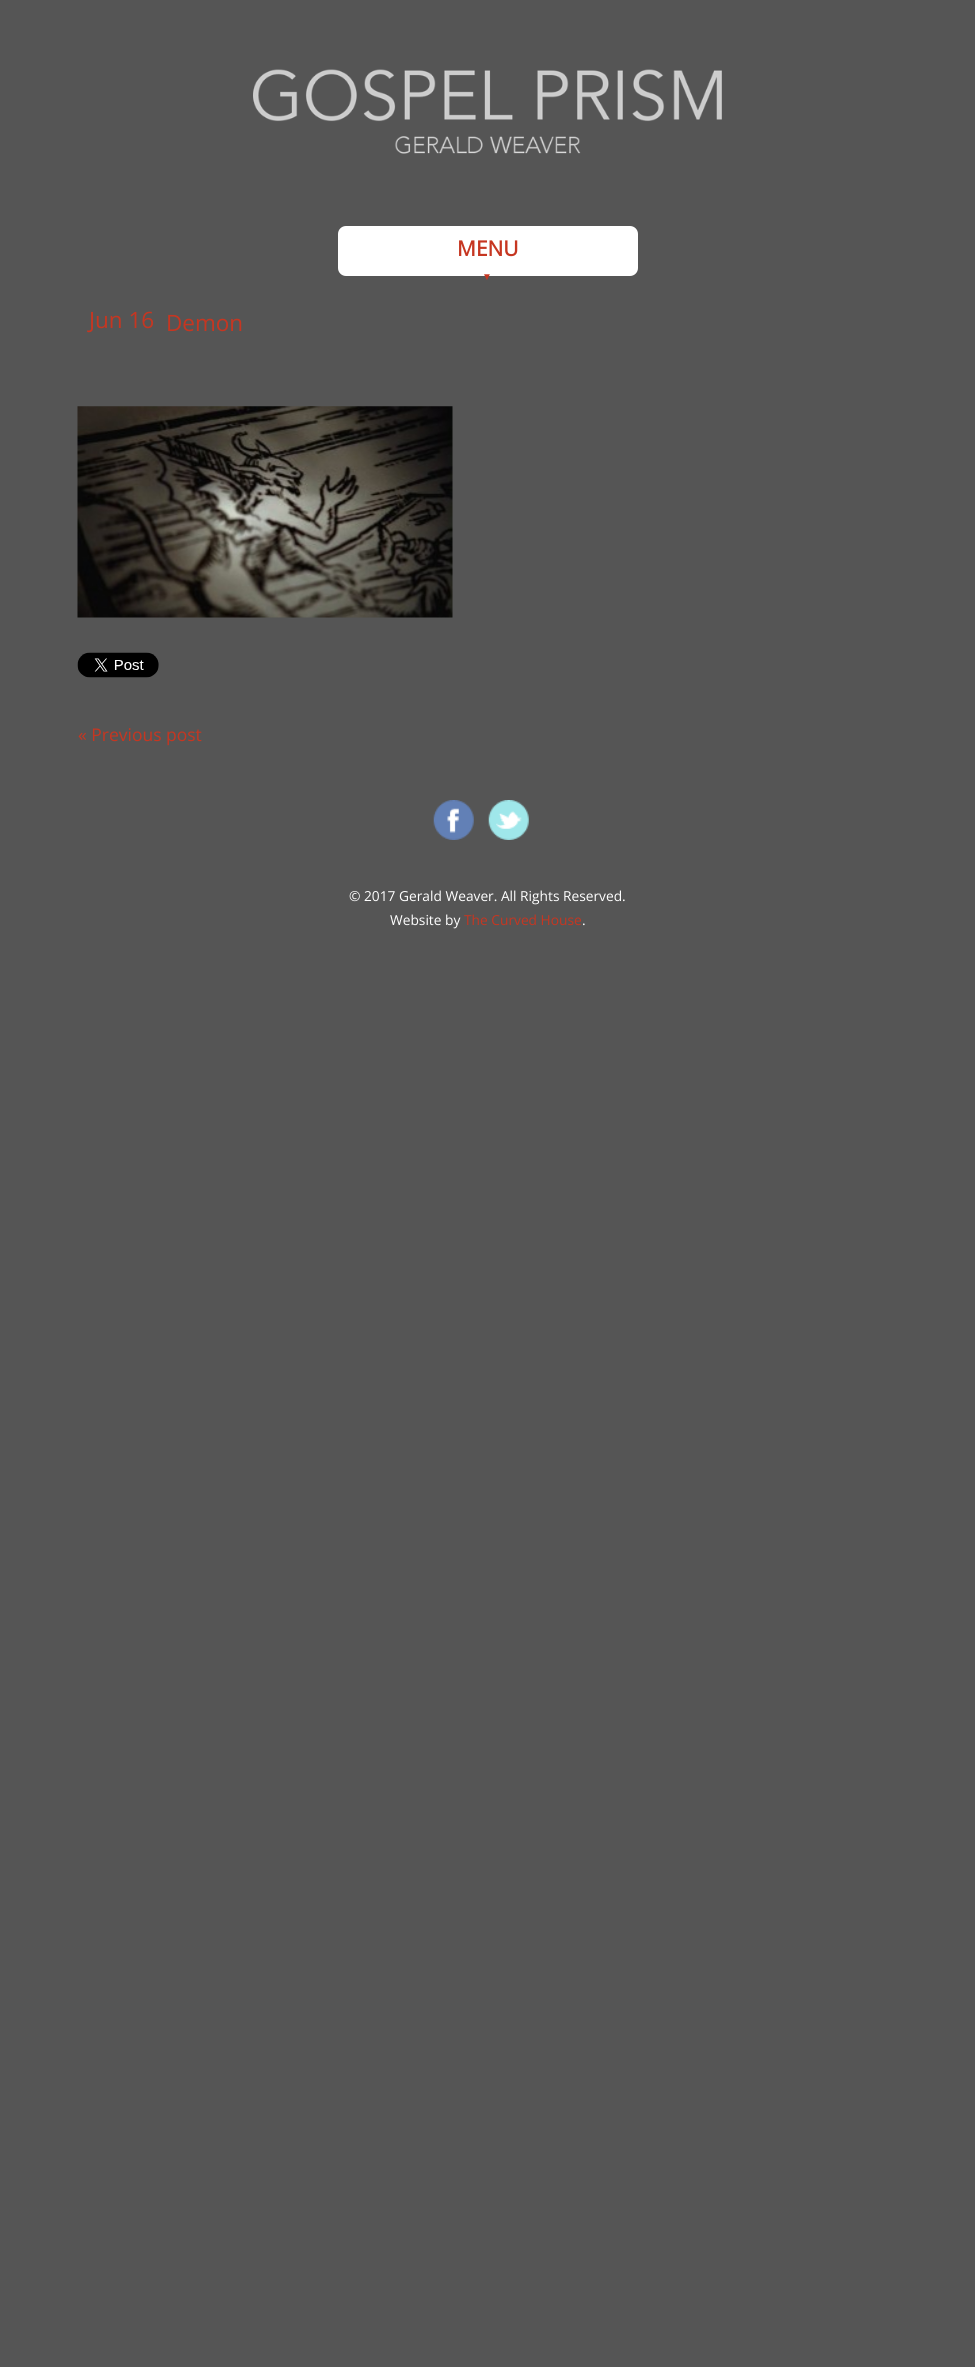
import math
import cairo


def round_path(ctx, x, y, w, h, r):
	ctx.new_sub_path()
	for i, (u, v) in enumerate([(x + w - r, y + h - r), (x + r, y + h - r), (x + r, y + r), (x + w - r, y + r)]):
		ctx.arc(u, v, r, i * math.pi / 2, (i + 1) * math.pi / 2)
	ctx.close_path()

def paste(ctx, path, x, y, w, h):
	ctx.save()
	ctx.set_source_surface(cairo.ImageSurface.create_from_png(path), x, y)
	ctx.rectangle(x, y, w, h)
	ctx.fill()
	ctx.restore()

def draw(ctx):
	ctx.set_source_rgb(0.333, 0.333, 0.333)
	ctx.paint()
	paste(ctx, 'media/1.png', 253, 69, 469, 85)
	ctx.set_source_rgb(1, 1, 1)
	round_path(ctx, 338, 226, 300, 50, 8)
	ctx.fill()
	ctx.select_font_face('Open Sans', cairo.FONT_SLANT_NORMAL, cairo.FONT_WEIGHT_BOLD)
	ctx.set_font_size(21)
	ctx.set_source_rgb(0.776, 0.212, 0.129)
	ctx.move_to(457, 256)
	ctx.show_text('MENU')
	ctx.select_font_face('Liberation Serif', cairo.FONT_SLANT_NORMAL, cairo.FONT_WEIGHT_BOLD)
	ctx.set_font_size(10)
	ctx.move_to(482, 280)
	ctx.show_text('▼')
	ctx.select_font_face('Open Sans')
	ctx.set_font_size(22.5)
	ctx.move_to(89, 328)
	ctx.show_text('Jun 16')
	ctx.move_to(166, 331)
	ctx.show_text('Demon')
	paste(ctx, 'media/2.png', 77, 406, 376, 212)
	paste(ctx, 'media/3.png', 77, 652, 82, 26)
	ctx.set_font_size(17.5)
	ctx.move_to(78, 741)
	ctx.show_text('« Previous post')
	paste(ctx, 'media/4.png', 433, 800, 41, 40)
	paste(ctx, 'media/5.png', 488, 800, 41, 40)
	ctx.set_font_size(13.75)
	ctx.set_source_rgb(1, 1, 1)
	ctx.move_to(349, 901)
	ctx.show_text('© 2017 Gerald Weaver. All Rights Reserved.')
	ctx.move_to(390, 925)
	ctx.show_text('Website by')
	ctx.set_source_rgb(0.776, 0.212, 0.129)
	ctx.move_to(464, 925)
	ctx.show_text('The Curved House')
	ctx.set_source_rgb(1, 1, 1)
	ctx.move_to(582, 925)
	ctx.show_text('.')


surface = cairo.ImageSurface(cairo.FORMAT_RGB24, 975, 2367)
ctx = cairo.Context(surface)
options = cairo.FontOptions()
options.set_hint_metrics(cairo.HINT_METRICS_OFF)
options.set_hint_style(cairo.HINT_STYLE_NONE)
ctx.set_font_options(options)
ctx.set_miter_limit(4)
draw(ctx)
surface.write_to_png('image.png')
